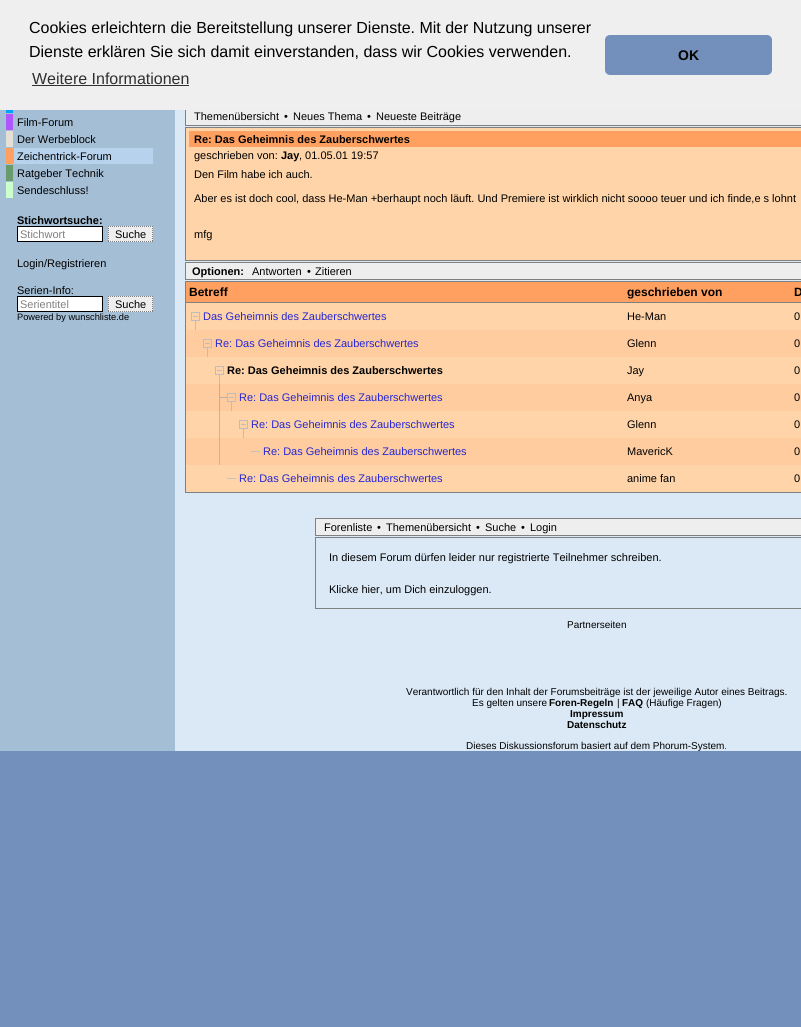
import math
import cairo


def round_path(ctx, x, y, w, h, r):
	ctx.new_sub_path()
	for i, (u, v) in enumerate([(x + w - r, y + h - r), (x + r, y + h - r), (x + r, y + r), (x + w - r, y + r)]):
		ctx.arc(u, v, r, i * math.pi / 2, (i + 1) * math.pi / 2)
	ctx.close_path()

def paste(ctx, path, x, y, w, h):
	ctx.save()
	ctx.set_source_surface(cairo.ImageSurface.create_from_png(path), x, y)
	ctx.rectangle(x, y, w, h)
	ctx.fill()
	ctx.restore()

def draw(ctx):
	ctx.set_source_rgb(0.447, 0.565, 0.733)
	ctx.paint()
	ctx.set_source_rgb(0.859, 0.914, 0.961)
	ctx.rectangle(175, 110, 626, 641)
	ctx.fill()
	ctx.set_source_rgb(0.933, 0.933, 0.933)
	ctx.rectangle(186, 110, 615, 15)
	ctx.fill()
	ctx.rectangle(185.5, 107.5, 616, 18)
	ctx.set_source_rgb(0.502, 0.502, 0.502)
	ctx.set_line_width(1)
	ctx.stroke()
	ctx.set_source_rgb(0.937, 0.937, 0.937)
	ctx.rectangle(0, 0, 801, 110)
	ctx.fill()
	ctx.select_font_face('Liberation Sans')
	ctx.set_font_size(16)
	ctx.set_source_rgb(0, 0, 0)
	ctx.move_to(29, 33)
	ctx.show_text('Cookies erleichtern die Bereitstellung unserer Dienste. Mit der Nutzung unserer')
	ctx.move_to(29, 57)
	ctx.show_text('Dienste erklären Sie sich damit einverstanden, dass wir Cookies verwenden.')
	ctx.set_source_rgb(0.188, 0.188, 0.188)
	ctx.move_to(32, 84)
	ctx.show_text('Weitere Informationen')
	ctx.rectangle(32, 85, 157, 1)
	ctx.fill()
	ctx.set_source_rgb(0.447, 0.565, 0.733)
	round_path(ctx, 605, 35, 167, 40, 5)
	ctx.fill()
	ctx.select_font_face('Liberation Sans', cairo.FONT_SLANT_NORMAL, cairo.FONT_WEIGHT_BOLD)
	ctx.set_font_size(14)
	ctx.set_source_rgb(0, 0, 0)
	ctx.move_to(678, 60)
	ctx.show_text('OK')
	ctx.set_source_rgb(0.643, 0.745, 0.835)
	ctx.rectangle(0, 110, 175, 641)
	ctx.fill()
	ctx.set_source_rgb(0, 0.627, 1)
	ctx.rectangle(6, 110, 7, 3)
	ctx.fill()
	ctx.set_source_rgb(0.682, 0.341, 0.996)
	ctx.rectangle(6, 114, 7, 16)
	ctx.fill()
	ctx.select_font_face('Liberation Sans')
	ctx.set_font_size(11)
	ctx.set_source_rgb(0, 0, 0)
	ctx.move_to(17, 126)
	ctx.show_text('Film-Forum')
	ctx.set_source_rgb(0.898, 0.878, 0.839)
	ctx.rectangle(6, 131, 7, 16)
	ctx.fill()
	ctx.set_source_rgb(0, 0, 0)
	ctx.move_to(17, 143)
	ctx.show_text('Der Werbeblock')
	ctx.set_source_rgb(1, 0.627, 0.376)
	ctx.rectangle(6, 148, 7, 16)
	ctx.fill()
	ctx.set_source_rgb(0.714, 0.824, 0.922)
	ctx.rectangle(14, 148, 139, 16)
	ctx.fill()
	ctx.set_source_rgb(0, 0, 0)
	ctx.move_to(17, 160)
	ctx.show_text('Zeichentrick-Forum')
	ctx.set_source_rgb(0.412, 0.608, 0.424)
	ctx.rectangle(6, 165, 7, 16)
	ctx.fill()
	ctx.set_source_rgb(0, 0, 0)
	ctx.move_to(17, 177)
	ctx.show_text('Ratgeber Technik')
	ctx.set_source_rgb(0.8, 1, 0.8)
	ctx.rectangle(6, 182, 7, 16)
	ctx.fill()
	ctx.set_source_rgb(0, 0, 0)
	ctx.move_to(17, 194)
	ctx.show_text('Sendeschluss!')
	ctx.select_font_face('Liberation Sans', cairo.FONT_SLANT_NORMAL, cairo.FONT_WEIGHT_BOLD)
	ctx.move_to(17, 224)
	ctx.show_text('Stichwortsuche:')
	ctx.set_source_rgb(1, 1, 1)
	ctx.rectangle(17.5, 226.5, 85, 15)
	ctx.fill_preserve()
	ctx.set_source_rgb(0, 0, 0)
	ctx.stroke()
	ctx.select_font_face('Liberation Sans')
	ctx.set_source_rgb(0.502, 0.502, 0.502)
	ctx.move_to(20, 238)
	ctx.show_text('Stichwort')
	ctx.set_source_rgb(0.933, 0.933, 0.933)
	ctx.rectangle(108, 226, 45, 16)
	ctx.fill()
	ctx.new_path()
	ctx.move_to(108, 226.5)
	ctx.line_to(153, 226.5)
	ctx.move_to(152.5, 226)
	ctx.line_to(152.5, 242)
	ctx.move_to(108, 241.5)
	ctx.line_to(153, 241.5)
	ctx.move_to(108.5, 226)
	ctx.line_to(108.5, 242)
	ctx.set_source_rgb(0.502, 0.502, 0.502)
	ctx.set_dash([1, 1])
	ctx.stroke()
	ctx.set_source_rgb(0, 0, 0)
	for x, y, s in [
		(115, 238, 'Suche'),
		(17, 267, 'Login/Registrieren'),
		(17, 294, 'Serien-Info:'),
	]:
		ctx.move_to(x, y)
		ctx.show_text(s)
	ctx.set_source_rgb(1, 1, 1)
	ctx.rectangle(17.5, 296.5, 85, 15)
	ctx.fill_preserve()
	ctx.set_source_rgb(0, 0, 0)
	ctx.set_dash([])
	ctx.stroke()
	ctx.set_source_rgb(0.502, 0.502, 0.502)
	ctx.move_to(20, 308)
	ctx.show_text('Serientitel')
	ctx.set_source_rgb(0.933, 0.933, 0.933)
	ctx.rectangle(108, 296, 45, 16)
	ctx.fill()
	ctx.new_path()
	ctx.move_to(108, 296.5)
	ctx.line_to(153, 296.5)
	ctx.move_to(152.5, 296)
	ctx.line_to(152.5, 312)
	ctx.move_to(108, 311.5)
	ctx.line_to(153, 311.5)
	ctx.move_to(108.5, 296)
	ctx.line_to(108.5, 312)
	ctx.set_source_rgb(0.502, 0.502, 0.502)
	ctx.set_dash([1, 1])
	ctx.stroke()
	ctx.set_source_rgb(0, 0, 0)
	ctx.move_to(115, 308)
	ctx.show_text('Suche')
	ctx.set_font_size(9.25)
	ctx.move_to(17, 320)
	ctx.show_text('Powered by wunschliste.de')
	ctx.set_font_size(11)
	for x, y, s in [
		(194, 120, 'Themenübersicht'),
		(284, 120, '•'),
		(293, 120, 'Neues Thema'),
		(367, 120, '•'),
		(376, 120, 'Neueste Beiträge'),
	]:
		ctx.move_to(x, y)
		ctx.show_text(s)
	ctx.set_source_rgb(1, 0.831, 0.659)
	ctx.rectangle(185.5, 127.5, 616, 133)
	ctx.fill_preserve()
	ctx.set_source_rgb(0.502, 0.502, 0.502)
	ctx.set_dash([])
	ctx.stroke()
	ctx.set_source_rgb(1, 0.627, 0.376)
	ctx.rectangle(189, 131, 612, 16)
	ctx.fill()
	ctx.select_font_face('Liberation Sans', cairo.FONT_SLANT_NORMAL, cairo.FONT_WEIGHT_BOLD)
	ctx.set_source_rgb(0, 0, 0)
	ctx.move_to(194, 143)
	ctx.show_text('Re: Das Geheimnis des Zauberschwertes')
	ctx.select_font_face('Liberation Sans')
	ctx.move_to(194, 159)
	ctx.show_text('geschrieben von:')
	ctx.select_font_face('Liberation Sans', cairo.FONT_SLANT_NORMAL, cairo.FONT_WEIGHT_BOLD)
	ctx.move_to(281, 159)
	ctx.show_text('Jay')
	ctx.select_font_face('Liberation Sans')
	for x, y, s in [
		(299, 159, ', 01.05.01 19:57'),
		(194, 178, 'Den Film habe ich auch.'),
		(194, 202, 'Aber es ist doch cool, dass He-Man +berhaupt noch läuft. Und Premiere ist wirklich nicht soooo teuer und ich finde,e s lohnt'),
		(194, 238, 'mfg'),
	]:
		ctx.move_to(x, y)
		ctx.show_text(s)
	ctx.set_source_rgb(0.933, 0.933, 0.933)
	ctx.rectangle(185.5, 262.5, 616, 17)
	ctx.fill_preserve()
	ctx.set_source_rgb(0.502, 0.502, 0.502)
	ctx.stroke()
	ctx.select_font_face('Liberation Sans', cairo.FONT_SLANT_NORMAL, cairo.FONT_WEIGHT_BOLD)
	ctx.set_source_rgb(0, 0, 0)
	ctx.move_to(192, 275)
	ctx.show_text('Optionen:')
	ctx.select_font_face('Liberation Sans')
	for x, y, s in [
		(252, 275, 'Antworten'),
		(307, 275, '•'),
		(315, 275, 'Zitieren'),
	]:
		ctx.move_to(x, y)
		ctx.show_text(s)
	ctx.rectangle(185.5, 281.5, 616, 211)
	ctx.set_source_rgb(0.502, 0.502, 0.502)
	ctx.stroke()
	ctx.set_source_rgb(1, 0.627, 0.376)
	ctx.rectangle(186, 282, 615, 20)
	ctx.fill()
	ctx.set_source_rgb(0.502, 0.502, 0.502)
	ctx.rectangle(186, 302, 615, 1)
	ctx.fill()
	ctx.select_font_face('Liberation Sans', cairo.FONT_SLANT_NORMAL, cairo.FONT_WEIGHT_BOLD)
	ctx.set_font_size(12)
	ctx.set_source_rgb(0, 0, 0)
	for x, y, s in [
		(189, 296, 'Betreff'),
		(627, 296, 'geschrieben von'),
		(794, 296, 'D'),
	]:
		ctx.move_to(x, y)
		ctx.show_text(s)
	ctx.set_source_rgb(1, 0.831, 0.659)
	ctx.rectangle(186, 303, 615, 27)
	ctx.fill()
	paste(ctx, 'media/1.png', 191, 312, 9, 18)
	ctx.select_font_face('Liberation Sans')
	ctx.set_font_size(11)
	ctx.set_source_rgb(0.149, 0.149, 0.824)
	ctx.move_to(203, 320)
	ctx.show_text('Das Geheimnis des Zauberschwertes')
	ctx.set_source_rgb(0, 0, 0)
	ctx.move_to(627, 320)
	ctx.show_text('He-Man')
	ctx.move_to(794, 320)
	ctx.show_text('0')
	ctx.set_source_rgb(1, 0.8, 0.627)
	ctx.rectangle(186, 330, 615, 27)
	ctx.fill()
	paste(ctx, 'media/2.png', 203, 339, 9, 18)
	ctx.set_source_rgb(0.149, 0.149, 0.824)
	ctx.move_to(215, 347)
	ctx.show_text('Re: Das Geheimnis des Zauberschwertes')
	ctx.set_source_rgb(0, 0, 0)
	ctx.move_to(627, 347)
	ctx.show_text('Glenn')
	ctx.move_to(794, 347)
	ctx.show_text('0')
	ctx.set_source_rgb(1, 0.831, 0.659)
	ctx.rectangle(186, 357, 615, 27)
	ctx.fill()
	paste(ctx, 'media/1.png', 215, 366, 9, 18)
	ctx.select_font_face('Liberation Sans', cairo.FONT_SLANT_NORMAL, cairo.FONT_WEIGHT_BOLD)
	ctx.set_source_rgb(0, 0, 0)
	ctx.move_to(227, 374)
	ctx.show_text('Re: Das Geheimnis des Zauberschwertes')
	ctx.select_font_face('Liberation Sans')
	ctx.move_to(627, 374)
	ctx.show_text('Jay')
	ctx.move_to(794, 374)
	ctx.show_text('0')
	ctx.set_source_rgb(1, 0.8, 0.627)
	ctx.rectangle(186, 384, 615, 27)
	ctx.fill()
	paste(ctx, 'media/3.png', 219, 384, 8, 27)
	paste(ctx, 'media/2.png', 227, 393, 9, 18)
	ctx.set_source_rgb(0.149, 0.149, 0.824)
	ctx.move_to(239, 401)
	ctx.show_text('Re: Das Geheimnis des Zauberschwertes')
	ctx.set_source_rgb(0, 0, 0)
	ctx.move_to(627, 401)
	ctx.show_text('Anya')
	ctx.move_to(794, 401)
	ctx.show_text('0')
	ctx.set_source_rgb(1, 0.831, 0.659)
	ctx.rectangle(186, 411, 615, 27)
	ctx.fill()
	ctx.set_source_rgb(1, 0.8, 0.627)
	ctx.rectangle(186, 438, 615, 27)
	ctx.fill()
	ctx.set_source_rgb(0.722, 0.722, 0.722)
	ctx.rectangle(219, 411, 1, 54)
	ctx.fill()
	paste(ctx, 'media/1.png', 239, 420, 9, 18)
	ctx.set_source_rgb(0.149, 0.149, 0.824)
	ctx.move_to(251, 428)
	ctx.show_text('Re: Das Geheimnis des Zauberschwertes')
	ctx.set_source_rgb(0, 0, 0)
	ctx.move_to(627, 428)
	ctx.show_text('Glenn')
	ctx.move_to(794, 428)
	ctx.show_text('0')
	ctx.set_source_rgb(0.761, 0.761, 0.761)
	ctx.rectangle(251, 451, 9, 1)
	ctx.fill()
	ctx.set_source_rgb(0.149, 0.149, 0.824)
	ctx.move_to(263, 455)
	ctx.show_text('Re: Das Geheimnis des Zauberschwertes')
	ctx.set_source_rgb(0, 0, 0)
	ctx.move_to(627, 455)
	ctx.show_text('MavericK')
	ctx.move_to(794, 455)
	ctx.show_text('0')
	ctx.set_source_rgb(1, 0.831, 0.659)
	ctx.rectangle(186, 465, 615, 27)
	ctx.fill()
	ctx.set_source_rgb(0.761, 0.761, 0.761)
	ctx.rectangle(227, 478, 9, 1)
	ctx.fill()
	ctx.set_source_rgb(0.149, 0.149, 0.824)
	ctx.move_to(239, 482)
	ctx.show_text('Re: Das Geheimnis des Zauberschwertes')
	ctx.set_source_rgb(0, 0, 0)
	ctx.move_to(627, 482)
	ctx.show_text('anime fan')
	ctx.move_to(794, 482)
	ctx.show_text('0')
	ctx.set_source_rgb(0.933, 0.933, 0.933)
	ctx.rectangle(315.5, 518.5, 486, 17)
	ctx.fill_preserve()
	ctx.set_source_rgb(0.502, 0.502, 0.502)
	ctx.stroke()
	ctx.set_source_rgb(0, 0, 0)
	for x, y, s in [
		(324, 531, 'Forenliste'),
		(377, 531, '•'),
		(386, 531, 'Themenübersicht'),
		(476, 531, '•'),
		(485, 531, 'Suche'),
		(521, 531, '•'),
		(530, 531, 'Login'),
	]:
		ctx.move_to(x, y)
		ctx.show_text(s)
	ctx.rectangle(315.5, 537.5, 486, 71)
	ctx.set_source_rgb(0.502, 0.502, 0.502)
	ctx.stroke()
	ctx.set_source_rgb(0, 0, 0)
	ctx.move_to(329, 561)
	ctx.show_text('In diesem Forum dürfen leider nur registrierte Teilnehmer schreiben.')
	ctx.move_to(329, 593)
	ctx.show_text('Klicke hier, um Dich einzuloggen.')
	ctx.set_font_size(10)
	for x, y, s in [
		(567, 628, 'Partnerseiten'),
		(406, 695, 'Verantwortlich für den Inhalt der Forumsbeiträge ist der jeweilige Autor eines Beitrags.'),
		(472, 706, 'Es gelten unsere'),
	]:
		ctx.move_to(x, y)
		ctx.show_text(s)
	ctx.select_font_face('Liberation Sans', cairo.FONT_SLANT_NORMAL, cairo.FONT_WEIGHT_BOLD)
	ctx.move_to(549, 706)
	ctx.show_text('Foren-Regeln')
	ctx.select_font_face('Liberation Sans')
	ctx.move_to(617, 706)
	ctx.show_text('|')
	ctx.select_font_face('Liberation Sans', cairo.FONT_SLANT_NORMAL, cairo.FONT_WEIGHT_BOLD)
	ctx.move_to(622, 706)
	ctx.show_text('FAQ')
	ctx.select_font_face('Liberation Sans')
	ctx.move_to(646, 706)
	ctx.show_text('(Häufige Fragen)')
	ctx.select_font_face('Liberation Sans', cairo.FONT_SLANT_NORMAL, cairo.FONT_WEIGHT_BOLD)
	ctx.move_to(570, 717)
	ctx.show_text('Impressum')
	ctx.move_to(567, 728)
	ctx.show_text('Datenschutz')
	ctx.select_font_face('Liberation Sans')
	ctx.move_to(466, 749)
	ctx.show_text('Dieses Diskussionsforum basiert auf dem Phorum-System.')


surface = cairo.ImageSurface(cairo.FORMAT_RGB24, 801, 1027)
ctx = cairo.Context(surface)
options = cairo.FontOptions()
options.set_hint_metrics(cairo.HINT_METRICS_OFF)
options.set_hint_style(cairo.HINT_STYLE_NONE)
ctx.set_font_options(options)
ctx.set_miter_limit(4)
draw(ctx)
surface.write_to_png('image.png')
